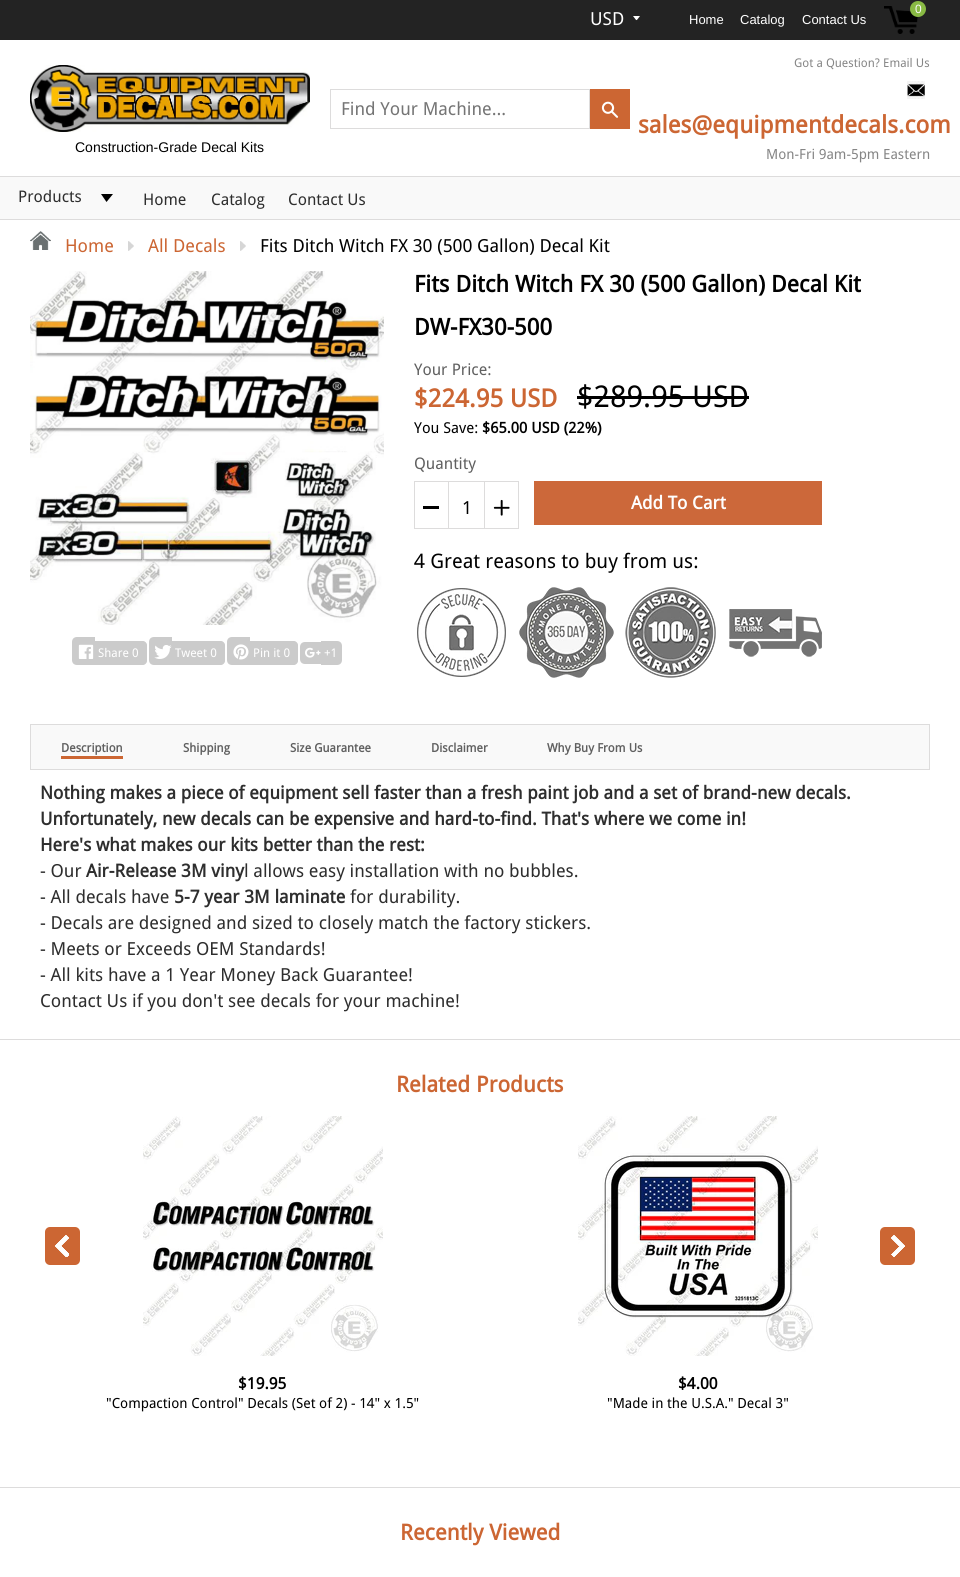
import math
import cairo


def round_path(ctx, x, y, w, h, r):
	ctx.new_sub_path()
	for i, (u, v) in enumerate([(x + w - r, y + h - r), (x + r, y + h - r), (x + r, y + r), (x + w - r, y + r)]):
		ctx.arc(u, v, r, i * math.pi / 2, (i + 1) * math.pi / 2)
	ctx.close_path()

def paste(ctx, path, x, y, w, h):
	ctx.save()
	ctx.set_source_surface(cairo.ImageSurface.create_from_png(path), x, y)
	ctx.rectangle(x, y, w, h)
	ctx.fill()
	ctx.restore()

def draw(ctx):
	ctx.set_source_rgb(1, 1, 1)
	ctx.paint()
	ctx.set_source_rgb(0.137, 0.137, 0.137)
	ctx.rectangle(0, 0, 960, 40)
	ctx.fill()
	paste(ctx, 'media/1.png', 884, 6, 34, 28)
	ctx.set_source_rgb(0.537, 0.729, 0.267)
	ctx.arc(918, 9, 8, 0, 2 * math.pi)
	ctx.fill()
	ctx.select_font_face('Liberation Sans')
	ctx.set_font_size(12)
	ctx.set_source_rgb(0.976, 0.976, 0.976)
	ctx.move_to(915, 13)
	ctx.show_text('0')
	ctx.set_source_rgb(1, 1, 1)
	ctx.new_path()
	ctx.move_to(633, 16)
	ctx.curve_to(637.5, 21.5, 635.5, 21.5, 640, 16)
	ctx.close_path()
	ctx.fill()
	ctx.select_font_face('Droid Sans')
	ctx.set_font_size(18)
	ctx.move_to(590, 25)
	ctx.show_text('USD')
	ctx.select_font_face('Liberation Sans')
	ctx.set_font_size(13)
	for x, y, s in [
		(689, 24, 'Home'),
		(740, 24, 'Catalog'),
		(802, 24, 'Contact Us'),
	]:
		ctx.move_to(x, y)
		ctx.show_text(s)
	ctx.rectangle(330.5, 89.5, 259, 39)
	ctx.set_source_rgb(0.867, 0.863, 0.863)
	ctx.set_line_width(1)
	ctx.stroke()
	ctx.select_font_face('Droid Sans')
	ctx.set_font_size(18)
	ctx.set_source_rgb(0.459, 0.459, 0.459)
	ctx.move_to(341, 115)
	ctx.show_text('Find Your Machine...')
	ctx.set_source_rgb(0.8, 0.4, 0.2)
	ctx.rectangle(590, 89, 40, 40)
	ctx.fill()
	paste(ctx, 'media/2.png', 601, 101, 18, 17)
	ctx.set_font_size(12)
	ctx.set_source_rgb(0.525, 0.525, 0.525)
	ctx.move_to(794, 67)
	ctx.show_text('Got a Question? Email Us')
	paste(ctx, 'media/3.png', 907, 81, 18, 18)
	ctx.select_font_face('Droid Sans', cairo.FONT_SLANT_NORMAL, cairo.FONT_WEIGHT_BOLD)
	ctx.set_font_size(24)
	ctx.set_source_rgb(0.8, 0.4, 0.2)
	ctx.move_to(638, 133)
	ctx.show_text('sales@equipmentdecals.com')
	ctx.select_font_face('Droid Sans')
	ctx.set_font_size(14)
	ctx.set_source_rgb(0.525, 0.525, 0.525)
	ctx.move_to(766, 159)
	ctx.show_text('Mon-Fri 9am-5pm Eastern')
	paste(ctx, 'media/4.png', 30, 65, 280, 67)
	ctx.select_font_face('Liberation Sans')
	ctx.set_source_rgb(0, 0, 0)
	ctx.move_to(75, 152)
	ctx.show_text('Construction-Grade Decal Kits')
	ctx.set_source_rgb(0.973, 0.973, 0.973)
	ctx.rectangle(0, 177, 960, 42)
	ctx.fill()
	ctx.set_source_rgb(0.867, 0.863, 0.863)
	ctx.rectangle(0, 176, 960, 1)
	ctx.rectangle(0, 219, 960, 1)
	ctx.fill()
	ctx.select_font_face('Droid Sans')
	ctx.set_font_size(16)
	ctx.set_source_rgb(0.18, 0.18, 0.18)
	ctx.move_to(18, 202)
	ctx.show_text('Products')
	ctx.set_source_rgb(0, 0, 0)
	ctx.new_path()
	ctx.move_to(101, 194)
	ctx.line_to(106.5, 202)
	ctx.line_to(113, 194)
	ctx.close_path()
	ctx.fill()
	ctx.set_source_rgb(0.18, 0.18, 0.18)
	for x, y, s in [
		(143, 205, 'Home'),
		(211, 205, 'Catalog'),
		(288, 205, 'Contact Us'),
	]:
		ctx.move_to(x, y)
		ctx.show_text(s)
	paste(ctx, 'media/5.png', 30, 231, 21, 19)
	ctx.set_font_size(18)
	ctx.set_source_rgb(0.8, 0.4, 0.2)
	ctx.move_to(65, 252)
	ctx.show_text('Home')
	paste(ctx, 'media/6.png', 128, 241, 6, 10)
	ctx.move_to(148, 252)
	ctx.show_text('All Decals')
	paste(ctx, 'media/6.png', 240, 241, 6, 10)
	ctx.set_source_rgb(0, 0, 0)
	ctx.move_to(260, 252)
	ctx.show_text('Fits Ditch Witch FX 30 (500 Gallon) Decal Kit')
	ctx.select_font_face('Droid Sans', cairo.FONT_SLANT_NORMAL, cairo.FONT_WEIGHT_BOLD)
	ctx.set_font_size(23)
	ctx.move_to(414, 292)
	ctx.show_text('Fits Ditch Witch FX 30 (500 Gallon) Decal Kit')
	ctx.move_to(414, 335)
	ctx.show_text('DW-FX30-500')
	ctx.select_font_face('Droid Sans')
	ctx.set_font_size(16)
	ctx.set_source_rgb(0.376, 0.376, 0.376)
	ctx.move_to(414, 375)
	ctx.show_text('Your Price:')
	ctx.select_font_face('Droid Sans', cairo.FONT_SLANT_NORMAL, cairo.FONT_WEIGHT_BOLD)
	ctx.set_font_size(25)
	ctx.set_source_rgb(0.8, 0.4, 0.2)
	ctx.move_to(414, 407)
	ctx.show_text('$224.95 USD')
	ctx.select_font_face('Droid Sans')
	ctx.set_font_size(30)
	ctx.set_source_rgb(0, 0, 0)
	ctx.move_to(577, 407)
	ctx.show_text('$289.95 USD')
	ctx.rectangle(577, 396, 172, 3)
	ctx.fill()
	ctx.set_font_size(15)
	ctx.move_to(414, 433)
	ctx.show_text('You Save:')
	ctx.select_font_face('Droid Sans', cairo.FONT_SLANT_NORMAL, cairo.FONT_WEIGHT_BOLD)
	ctx.move_to(482, 433)
	ctx.show_text('$65.00 USD (22%)')
	ctx.select_font_face('Droid Sans')
	ctx.set_font_size(16)
	ctx.set_source_rgb(0.376, 0.376, 0.376)
	ctx.move_to(414, 469)
	ctx.show_text('Quantity')
	ctx.rectangle(414.5, 481.5, 104, 47)
	ctx.set_source_rgb(0.867, 0.863, 0.863)
	ctx.stroke()
	ctx.rectangle(448, 481, 1, 48)
	ctx.fill()
	ctx.set_source_rgb(0, 0, 0)
	ctx.rectangle(423, 506, 16, 3)
	ctx.fill()
	ctx.set_font_size(18)
	ctx.move_to(462, 514)
	ctx.show_text('1')
	ctx.set_source_rgb(0.867, 0.863, 0.863)
	ctx.rectangle(484, 481, 1, 48)
	ctx.fill()
	paste(ctx, 'media/7.png', 493, 499, 17, 17)
	ctx.set_source_rgb(0.8, 0.408, 0.227)
	ctx.rectangle(534, 481, 288, 44)
	ctx.fill()
	ctx.select_font_face('Droid Sans', cairo.FONT_SLANT_NORMAL, cairo.FONT_WEIGHT_BOLD)
	ctx.set_source_rgb(1, 1, 1)
	ctx.move_to(631, 509)
	ctx.show_text('Add To Cart')
	ctx.select_font_face('Droid Sans')
	ctx.set_font_size(20)
	ctx.set_source_rgb(0, 0, 0)
	ctx.move_to(414, 568)
	ctx.show_text('4 Great reasons to buy from us:')
	paste(ctx, 'media/8.png', 417, 588, 89, 89)
	paste(ctx, 'media/9.png', 519, 587, 95, 91)
	paste(ctx, 'media/10.png', 625, 587, 91, 91)
	paste(ctx, 'media/11.png', 729, 609, 93, 48)
	paste(ctx, 'media/12.png', 30, 271, 354, 354)
	ctx.set_source_rgb(0.796, 0.796, 0.796)
	ctx.new_path()
	ctx.move_to(77, 637)
	ctx.line_to(95, 637)
	ctx.line_to(95, 665)
	ctx.line_to(77, 665)
	ctx.curve_to(74, 665, 72, 663, 72, 660)
	ctx.line_to(72, 642)
	ctx.curve_to(72, 639, 74, 637, 77, 637)
	ctx.close_path()
	ctx.fill()
	paste(ctx, 'media/13.png', 78, 644, 16, 15)
	ctx.rectangle(95, 641, 44, 24)
	ctx.fill()
	ctx.set_font_size(12)
	ctx.set_source_rgb(1, 1, 1)
	ctx.move_to(98, 657)
	ctx.show_text('Share 0')
	ctx.set_source_rgb(0.796, 0.796, 0.796)
	ctx.new_path()
	ctx.move_to(139, 641)
	ctx.line_to(143, 641)
	ctx.curve_to(145, 641, 147, 643, 147, 645)
	ctx.line_to(147, 661)
	ctx.curve_to(147, 663, 145, 665, 143, 665)
	ctx.line_to(139, 665)
	ctx.close_path()
	ctx.fill()
	ctx.new_path()
	ctx.move_to(154, 637)
	ctx.line_to(172, 637)
	ctx.line_to(172, 665)
	ctx.line_to(154, 665)
	ctx.curve_to(151, 665, 149, 663, 149, 660)
	ctx.line_to(149, 642)
	ctx.curve_to(149, 639, 151, 637, 154, 637)
	ctx.close_path()
	ctx.fill()
	paste(ctx, 'media/14.png', 154, 645, 18, 14)
	ctx.rectangle(172, 641, 45, 24)
	ctx.fill()
	ctx.set_source_rgb(1, 1, 1)
	ctx.move_to(175, 657)
	ctx.show_text('Tweet 0')
	ctx.set_source_rgb(0.796, 0.796, 0.796)
	ctx.new_path()
	ctx.move_to(217, 641)
	ctx.line_to(221, 641)
	ctx.curve_to(223, 641, 225, 643, 225, 645)
	ctx.line_to(225, 661)
	ctx.curve_to(225, 663, 223, 665, 221, 665)
	ctx.line_to(217, 665)
	ctx.close_path()
	ctx.fill()
	ctx.new_path()
	ctx.move_to(232, 637)
	ctx.line_to(250, 637)
	ctx.line_to(250, 665)
	ctx.line_to(232, 665)
	ctx.curve_to(229, 665, 227, 663, 227, 660)
	ctx.line_to(227, 642)
	ctx.curve_to(227, 639, 229, 637, 232, 637)
	ctx.close_path()
	ctx.fill()
	paste(ctx, 'media/15.png', 233, 644, 16, 16)
	ctx.rectangle(250, 641, 40, 24)
	ctx.fill()
	ctx.set_source_rgb(1, 1, 1)
	ctx.move_to(253, 657)
	ctx.show_text('Pin it 0')
	ctx.set_source_rgb(0.796, 0.796, 0.796)
	ctx.new_path()
	ctx.move_to(290, 641)
	ctx.line_to(294, 641)
	ctx.curve_to(296, 641, 298, 643, 298, 645)
	ctx.line_to(298, 661)
	ctx.curve_to(298, 663, 296, 665, 294, 665)
	ctx.line_to(290, 665)
	ctx.close_path()
	ctx.fill()
	ctx.new_path()
	ctx.move_to(305, 642)
	ctx.line_to(321, 642)
	ctx.line_to(321, 664)
	ctx.line_to(305, 664)
	ctx.curve_to(302, 664, 300, 662, 300, 659)
	ctx.line_to(300, 647)
	ctx.curve_to(300, 644, 302, 642, 305, 642)
	ctx.close_path()
	ctx.fill()
	ctx.rectangle(321, 641, 3, 24)
	ctx.fill()
	ctx.new_path()
	ctx.move_to(324, 641)
	ctx.line_to(337, 641)
	ctx.curve_to(340, 641, 342, 643, 342, 646)
	ctx.line_to(342, 660)
	ctx.curve_to(342, 663, 340, 665, 337, 665)
	ctx.line_to(324, 665)
	ctx.close_path()
	ctx.fill()
	paste(ctx, 'media/16.png', 305, 647, 16, 11)
	ctx.set_source_rgb(1, 1, 1)
	ctx.move_to(324, 657)
	ctx.show_text('+1')
	ctx.set_source_rgb(0.973, 0.973, 0.973)
	ctx.rectangle(30.5, 724.5, 899, 45)
	ctx.fill_preserve()
	ctx.set_source_rgb(0.867, 0.863, 0.863)
	ctx.stroke()
	ctx.set_source_rgb(0.8, 0.4, 0.2)
	ctx.rectangle(61, 756, 62, 3)
	ctx.fill()
	ctx.select_font_face('Droid Sans', cairo.FONT_SLANT_NORMAL, cairo.FONT_WEIGHT_BOLD)
	ctx.set_source_rgb(0.376, 0.376, 0.376)
	for x, y, s in [
		(61, 752, 'Description'),
		(183, 752, 'Shipping'),
		(290, 752, 'Size Guarantee'),
		(431, 752, 'Disclaimer'),
		(547, 752, 'Why Buy From Us'),
	]:
		ctx.move_to(x, y)
		ctx.show_text(s)
	ctx.set_font_size(18)
	ctx.set_source_rgb(0.18, 0.18, 0.18)
	for x, y, s in [
		(40, 799, 'Nothing makes a piece of equipment sell faster than a fresh paint job and a set of brand-new decals.'),
		(40, 825, 'Unfortunately, new decals can be expensive and hard-to-find. That\'s where we come in!'),
		(40, 851, 'Here\'s what makes our kits better than the rest:'),
	]:
		ctx.move_to(x, y)
		ctx.show_text(s)
	ctx.select_font_face('Droid Sans')
	ctx.move_to(40, 877)
	ctx.show_text('- Our')
	ctx.select_font_face('Droid Sans', cairo.FONT_SLANT_NORMAL, cairo.FONT_WEIGHT_BOLD)
	ctx.move_to(86, 877)
	ctx.show_text('Air-Release 3M viny')
	ctx.select_font_face('Droid Sans')
	ctx.move_to(244, 877)
	ctx.show_text('l allows easy installation with no bubbles.')
	ctx.move_to(40, 903)
	ctx.show_text('- All decals have')
	ctx.select_font_face('Droid Sans', cairo.FONT_SLANT_NORMAL, cairo.FONT_WEIGHT_BOLD)
	ctx.move_to(174, 903)
	ctx.show_text('5-7 year 3M laminate')
	ctx.select_font_face('Droid Sans')
	for x, y, s in [
		(350, 903, 'for durability.'),
		(40, 929, '- Decals are designed and sized to closely match the factory stickers.'),
		(40, 955, '- Meets or Exceeds OEM Standards!'),
		(40, 981, '- All kits have a 1 Year Money Back Guarantee!'),
		(40, 1007, 'Contact Us if you don\'t see decals for your machine!'),
	]:
		ctx.move_to(x, y)
		ctx.show_text(s)
	ctx.set_source_rgb(0.867, 0.863, 0.863)
	ctx.rectangle(0, 1039, 960, 1)
	ctx.fill()
	ctx.select_font_face('Droid Sans', cairo.FONT_SLANT_NORMAL, cairo.FONT_WEIGHT_BOLD)
	ctx.set_font_size(22)
	ctx.set_source_rgb(0.8, 0.4, 0.2)
	ctx.move_to(396, 1092)
	ctx.show_text('Related Products')
	round_path(ctx, 45, 1227, 35, 38, 5)
	ctx.fill()
	paste(ctx, 'media/17.png', 55, 1235, 14, 22)
	round_path(ctx, 880, 1227, 35, 38, 5)
	ctx.fill()
	paste(ctx, 'media/18.png', 891, 1235, 14, 22)
	paste(ctx, 'media/19.png', 143, 1116, 240, 240)
	ctx.set_font_size(16)
	ctx.set_source_rgb(0, 0, 0)
	ctx.move_to(238, 1389)
	ctx.show_text('$19.95')
	ctx.select_font_face('Droid Sans')
	ctx.set_font_size(14)
	ctx.move_to(106, 1408)
	ctx.show_text('"Compaction Control" Decals (Set of 2) - 14" x 1.5"')
	paste(ctx, 'media/20.png', 578, 1116, 240, 240)
	ctx.select_font_face('Droid Sans', cairo.FONT_SLANT_NORMAL, cairo.FONT_WEIGHT_BOLD)
	ctx.set_font_size(16)
	ctx.move_to(678, 1389)
	ctx.show_text('$4.00')
	ctx.select_font_face('Droid Sans')
	ctx.set_font_size(14)
	ctx.move_to(607, 1408)
	ctx.show_text('"Made in the U.S.A." Decal 3"')
	ctx.set_source_rgb(0.867, 0.863, 0.863)
	ctx.rectangle(0, 1487, 960, 1)
	ctx.fill()
	ctx.select_font_face('Droid Sans', cairo.FONT_SLANT_NORMAL, cairo.FONT_WEIGHT_BOLD)
	ctx.set_font_size(22)
	ctx.set_source_rgb(0.8, 0.4, 0.2)
	ctx.move_to(400, 1540)
	ctx.show_text('Recently Viewed')


surface = cairo.ImageSurface(cairo.FORMAT_RGB24, 960, 1577)
ctx = cairo.Context(surface)
options = cairo.FontOptions()
options.set_hint_metrics(cairo.HINT_METRICS_OFF)
options.set_hint_style(cairo.HINT_STYLE_NONE)
ctx.set_font_options(options)
ctx.set_miter_limit(4)
draw(ctx)
surface.write_to_png('image.png')
